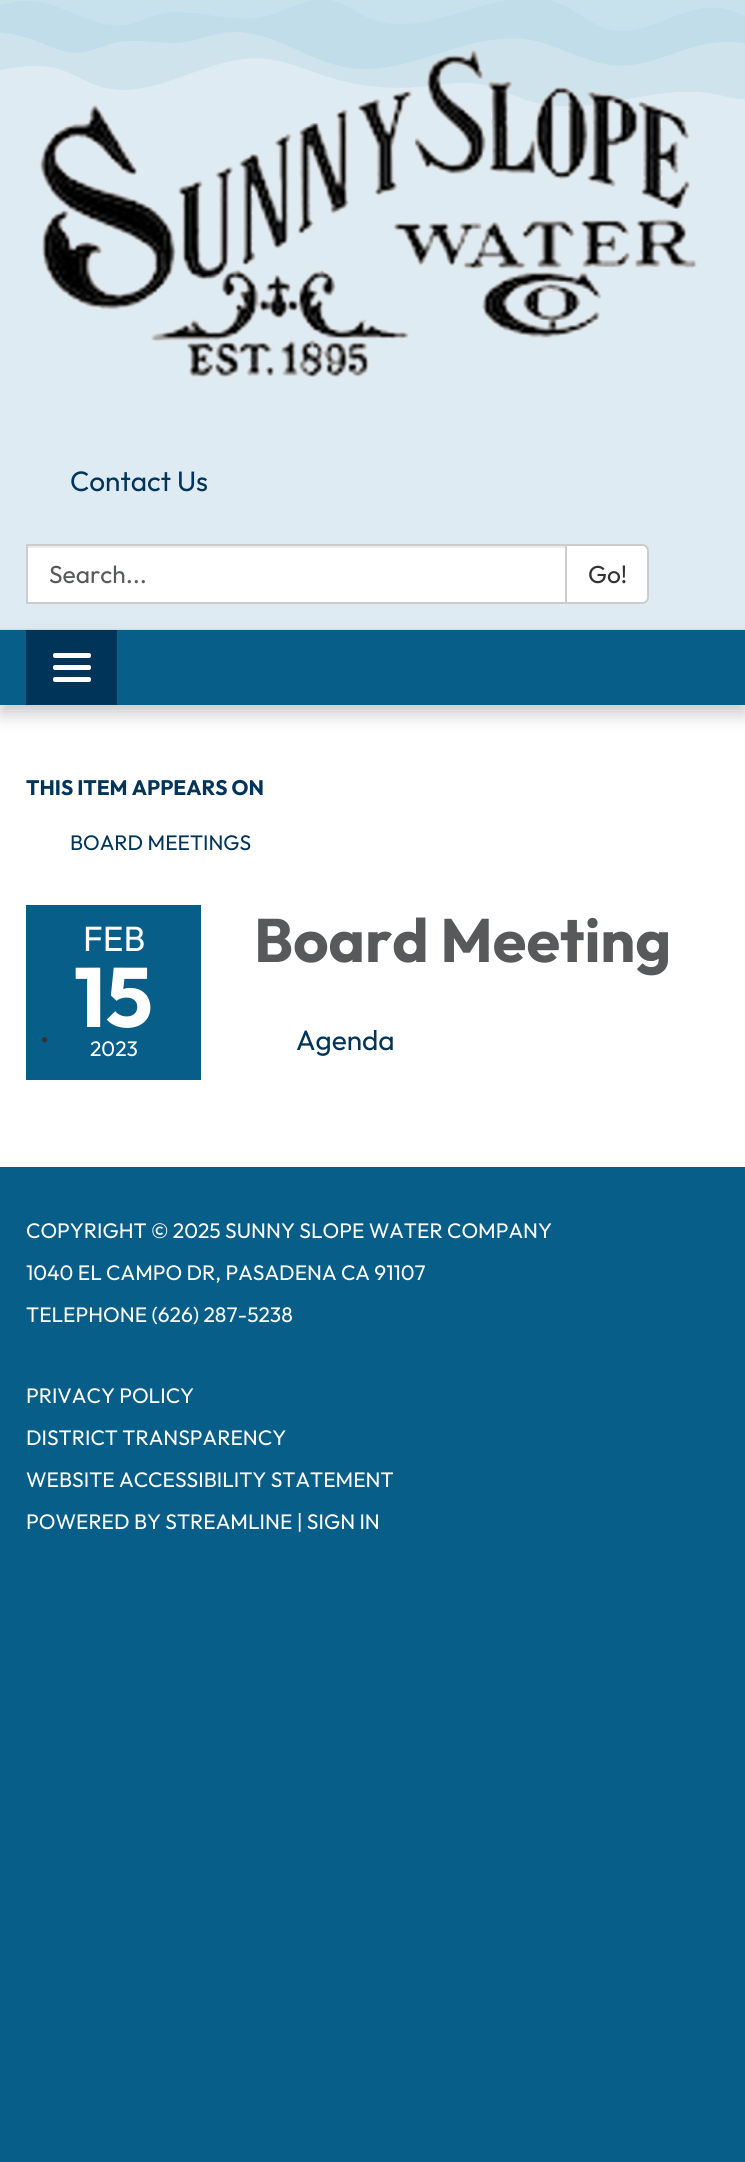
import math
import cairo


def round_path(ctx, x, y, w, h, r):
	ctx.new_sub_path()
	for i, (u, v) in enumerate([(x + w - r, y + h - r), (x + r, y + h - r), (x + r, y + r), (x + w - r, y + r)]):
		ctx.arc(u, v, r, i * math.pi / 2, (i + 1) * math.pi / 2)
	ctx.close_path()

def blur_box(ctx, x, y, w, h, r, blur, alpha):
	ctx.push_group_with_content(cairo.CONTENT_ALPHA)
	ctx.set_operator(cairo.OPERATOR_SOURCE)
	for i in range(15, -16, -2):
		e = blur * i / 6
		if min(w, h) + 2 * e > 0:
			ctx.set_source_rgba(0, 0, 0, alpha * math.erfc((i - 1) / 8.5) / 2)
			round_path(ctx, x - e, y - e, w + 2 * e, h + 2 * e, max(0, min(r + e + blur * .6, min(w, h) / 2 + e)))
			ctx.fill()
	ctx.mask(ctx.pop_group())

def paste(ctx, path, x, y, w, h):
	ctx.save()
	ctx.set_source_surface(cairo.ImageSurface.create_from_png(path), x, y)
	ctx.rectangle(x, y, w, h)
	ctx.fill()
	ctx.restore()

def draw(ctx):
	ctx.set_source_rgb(0.031, 0.369, 0.537)
	ctx.paint()
	ctx.set_source_rgb(0.725, 0.851, 0.914)
	ctx.rectangle(0, 0, 745, 630)
	ctx.fill()
	paste(ctx, 'media/1.png', 0, 0, 745, 630)
	paste(ctx, 'media/2.png', 39, 49, 658, 328)
	ctx.select_font_face('Outfit')
	ctx.set_font_size(28)
	ctx.set_source_rgb(0, 0.204, 0.349)
	ctx.move_to(70, 491)
	ctx.show_text('Contact Us')
	ctx.set_source_rgb(1, 1, 1)
	ctx.rectangle(28, 548, 537, 54)
	ctx.fill()
	ctx.set_source_rgb(0.925, 0.925, 0.925)
	ctx.rectangle(28, 546, 537, 2)
	ctx.fill()
	ctx.rectangle(27, 545, 539, 58)
	ctx.set_source_rgb(0.8, 0.8, 0.8)
	ctx.stroke()
	ctx.set_font_size(24.5)
	ctx.set_source_rgb(0.345, 0.349, 0.357)
	ctx.move_to(49, 583)
	ctx.show_text('Search...')
	ctx.set_source_rgb(1, 1, 1)
	ctx.new_path()
	ctx.move_to(566, 545)
	ctx.line_to(642, 545)
	ctx.curve_to(645.5, 545, 648, 547.5, 648, 551)
	ctx.line_to(648, 597)
	ctx.curve_to(648, 600.5, 645.5, 603, 642, 603)
	ctx.line_to(566, 603)
	ctx.close_path()
	ctx.fill_preserve()
	ctx.set_source_rgb(0.8, 0.8, 0.8)
	ctx.stroke()
	ctx.set_source_rgb(0.2, 0.2, 0.2)
	ctx.move_to(588, 583)
	ctx.show_text('Go!')
	ctx.set_source_rgb(1, 1, 1)
	ctx.rectangle(0, 705, 745, 462)
	ctx.fill()
	ctx.save()
	ctx.set_fill_rule(cairo.FILL_RULE_EVEN_ODD)
	ctx.new_path()
	ctx.move_to(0, 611)
	ctx.line_to(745, 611)
	ctx.line_to(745, 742)
	ctx.line_to(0, 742)
	ctx.close_path()
	ctx.move_to(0, 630)
	ctx.line_to(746, 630)
	ctx.line_to(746, 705)
	ctx.line_to(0, 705)
	ctx.close_path()
	ctx.clip()
	ctx.set_source_rgb(0, 0, 0)
	blur_box(ctx, 0, 639, 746, 75, 0, 9, 0.21)
	ctx.restore()
	ctx.set_source_rgb(0, 0.204, 0.349)
	ctx.rectangle(26, 630, 91, 75)
	ctx.fill()
	ctx.set_source_rgb(1, 1, 1)
	round_path(ctx, 53, 653, 38, 5, 2)
	ctx.fill()
	round_path(ctx, 53, 665, 38, 5, 2)
	ctx.fill()
	round_path(ctx, 53, 677, 38, 5, 2)
	ctx.fill()
	ctx.select_font_face('Outfit', cairo.FONT_SLANT_NORMAL, cairo.FONT_WEIGHT_BOLD)
	ctx.set_font_size(21)
	ctx.set_source_rgb(0, 0.204, 0.349)
	ctx.move_to(26, 795)
	ctx.show_text('THIS ITEM APPEARS ON')
	ctx.select_font_face('Outfit')
	ctx.move_to(70, 850)
	ctx.show_text('BOARD MEETINGS')
	ctx.set_source_rgb(0.031, 0.369, 0.537)
	ctx.rectangle(26, 905, 175, 175)
	ctx.fill()
	ctx.set_font_size(35)
	ctx.set_source_rgb(1, 1, 1)
	ctx.move_to(83, 951)
	ctx.show_text('FEB')
	ctx.select_font_face('Outfit', cairo.FONT_SLANT_NORMAL, cairo.FONT_WEIGHT_BOLD)
	ctx.set_font_size(84)
	ctx.move_to(74, 1027)
	ctx.show_text('15')
	ctx.select_font_face('Outfit')
	ctx.set_font_size(21)
	ctx.move_to(90, 1056)
	ctx.show_text('2023')
	ctx.select_font_face('Outfit', cairo.FONT_SLANT_NORMAL, cairo.FONT_WEIGHT_BOLD)
	ctx.set_font_size(61.25)
	ctx.set_source_rgb(0.345, 0.349, 0.357)
	ctx.move_to(254, 962)
	ctx.show_text('Board Meeting')
	ctx.select_font_face('Outfit')
	ctx.set_font_size(28)
	ctx.set_source_rgb(0.2, 0.2, 0.2)
	ctx.move_to(40, 1050)
	ctx.show_text('•')
	ctx.set_source_rgb(0, 0.204, 0.349)
	ctx.move_to(296, 1050)
	ctx.show_text('Agenda')
	ctx.set_font_size(21)
	ctx.set_source_rgb(1, 1, 1)
	for x, y, s in [
		(26, 1238, 'COPYRIGHT © 2025 SUNNY SLOPE WATER COMPANY'),
		(26, 1280, '1040 EL CAMPO DR, PASADENA CA 91107'),
		(26, 1322, 'TELEPHONE (626) 287-5238'),
		(26, 1403, 'PRIVACY POLICY'),
		(26, 1445, 'DISTRICT TRANSPARENCY'),
		(26, 1487, 'WEBSITE ACCESSIBILITY STATEMENT'),
		(26, 1529, 'POWERED BY STREAMLINE | SIGN IN'),
	]:
		ctx.move_to(x, y)
		ctx.show_text(s)


surface = cairo.ImageSurface(cairo.FORMAT_RGB24, 745, 2162)
ctx = cairo.Context(surface)
options = cairo.FontOptions()
options.set_hint_metrics(cairo.HINT_METRICS_OFF)
options.set_hint_style(cairo.HINT_STYLE_NONE)
ctx.set_font_options(options)
ctx.set_miter_limit(4)
draw(ctx)
surface.write_to_png('image.png')
